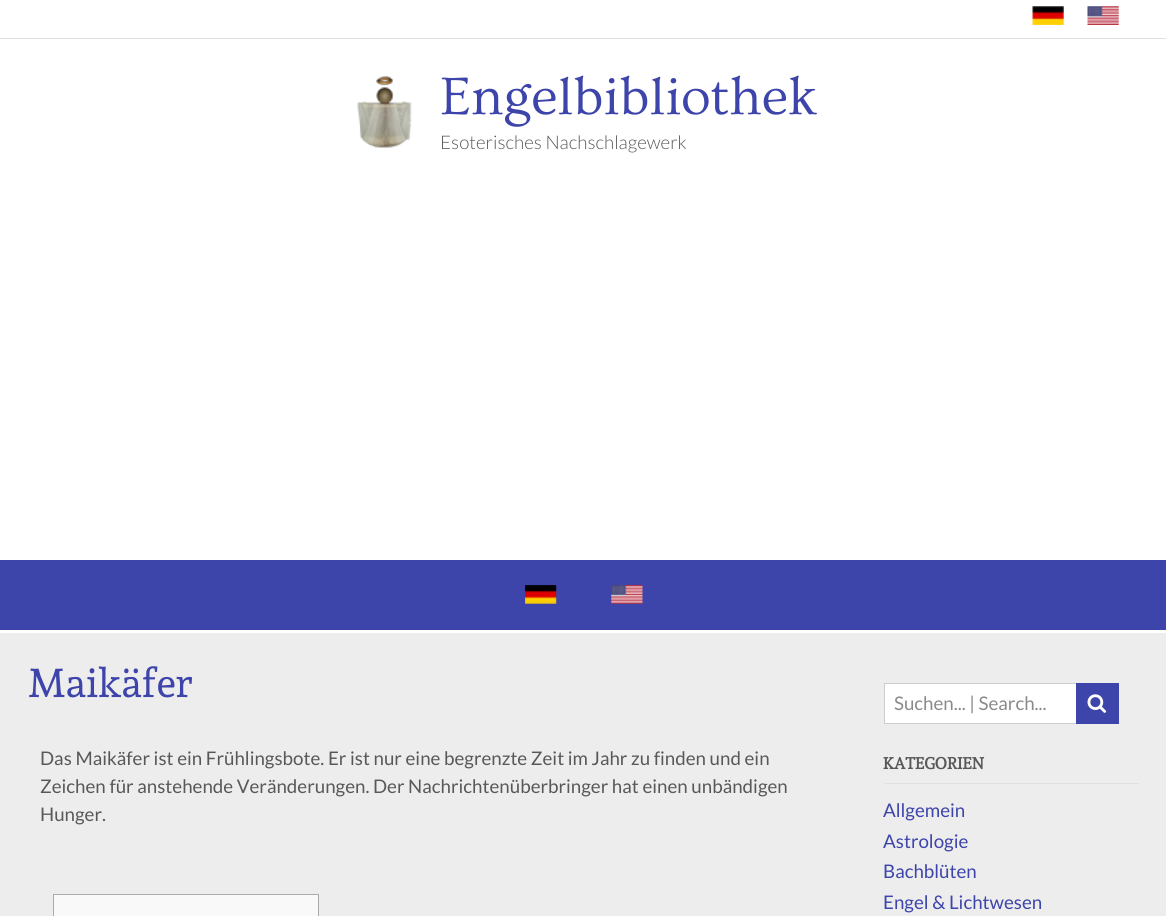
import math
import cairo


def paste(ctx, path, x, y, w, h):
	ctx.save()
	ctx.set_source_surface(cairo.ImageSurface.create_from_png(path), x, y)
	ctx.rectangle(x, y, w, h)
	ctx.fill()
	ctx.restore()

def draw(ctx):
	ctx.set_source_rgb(0.929, 0.929, 0.929)
	ctx.paint()
	ctx.set_source_rgb(1, 1, 1)
	ctx.rectangle(0, 0, 1166, 560)
	ctx.fill()
	ctx.set_source_rgb(0.878, 0.878, 0.878)
	ctx.rectangle(0, 38, 1166, 1)
	ctx.fill()
	paste(ctx, 'media/1.png', 1032, 6, 32, 19)
	paste(ctx, 'media/2.png', 1087, 6, 32, 19)
	paste(ctx, 'media/3.png', 357, 76, 55, 72)
	ctx.select_font_face('Ovo')
	ctx.set_font_size(55)
	ctx.set_source_rgb(0.239, 0.267, 0.667)
	ctx.move_to(440, 114)
	ctx.show_text('Engelbibliothek')
	ctx.select_font_face('Lato Light')
	ctx.set_font_size(18.75)
	ctx.set_source_rgb(0.345, 0.345, 0.353)
	ctx.move_to(440, 149)
	ctx.show_text('Esoterisches Nachschlagewerk')
	ctx.set_source_rgb(0.239, 0.267, 0.667)
	ctx.rectangle(0, 560, 1166, 70)
	ctx.fill()
	ctx.set_source_rgb(1, 1, 1)
	ctx.rectangle(0, 630, 1166, 3)
	ctx.fill()
	paste(ctx, 'media/4.png', 525, 585, 32, 19)
	paste(ctx, 'media/5.png', 611, 585, 32, 19)
	ctx.select_font_face('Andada')
	ctx.set_font_size(40)
	ctx.set_source_rgb(0.239, 0.267, 0.667)
	ctx.move_to(28, 697)
	ctx.show_text('Maikäfer')
	ctx.select_font_face('Lato')
	ctx.set_font_size(18.75)
	ctx.set_source_rgb(0.345, 0.345, 0.353)
	for x, y, s in [
		(40, 765, 'Das Maikäfer ist ein Frühlingsbote. Er ist nur eine begrenzte Zeit im Jahr zu finden und ein'),
		(40, 793, 'Zeichen für anstehende Veränderungen. Der Nachrichtenüberbringer hat einen unbändigen'),
		(40, 821, 'Hunger.'),
	]:
		ctx.move_to(x, y)
		ctx.show_text(s)
	ctx.set_source_rgb(0.976, 0.976, 0.976)
	ctx.rectangle(53.5, 894.5, 265, 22)
	ctx.fill_preserve()
	ctx.set_source_rgb(0.667, 0.667, 0.667)
	ctx.set_line_width(1)
	ctx.stroke()
	ctx.set_source_rgb(1, 1, 1)
	ctx.rectangle(885, 684, 191, 39)
	ctx.fill()
	ctx.rectangle(884.5, 683.5, 195, 40)
	ctx.set_source_rgb(0.8, 0.8, 0.8)
	ctx.stroke()
	ctx.set_source_rgb(0.541, 0.541, 0.549)
	ctx.move_to(894, 710)
	ctx.show_text('Suchen... | Search...')
	ctx.set_source_rgb(0.239, 0.267, 0.667)
	ctx.rectangle(1076, 683, 43, 41)
	ctx.fill()
	paste(ctx, 'media/6.png', 1087, 694, 20, 19)
	ctx.set_source_rgb(0.878, 0.878, 0.878)
	ctx.rectangle(884, 783, 255, 1)
	ctx.fill()
	ctx.select_font_face('Andada', cairo.FONT_SLANT_NORMAL, cairo.FONT_WEIGHT_BOLD)
	ctx.set_font_size(16.25)
	ctx.set_source_rgb(0.345, 0.345, 0.353)
	ctx.move_to(883, 769)
	ctx.show_text('KATEGORIEN')
	ctx.select_font_face('Lato')
	ctx.set_font_size(18.75)
	ctx.set_source_rgb(0.239, 0.267, 0.667)
	for x, y, s in [
		(883, 817, 'Allgemein'),
		(883, 848, 'Astrologie'),
		(883, 878, 'Bachblüten'),
		(883, 909, 'Engel & Lichtwesen'),
	]:
		ctx.move_to(x, y)
		ctx.show_text(s)


surface = cairo.ImageSurface(cairo.FORMAT_RGB24, 1166, 916)
ctx = cairo.Context(surface)
options = cairo.FontOptions()
options.set_hint_metrics(cairo.HINT_METRICS_OFF)
options.set_hint_style(cairo.HINT_STYLE_NONE)
ctx.set_font_options(options)
ctx.set_miter_limit(4)
draw(ctx)
surface.write_to_png('image.png')
